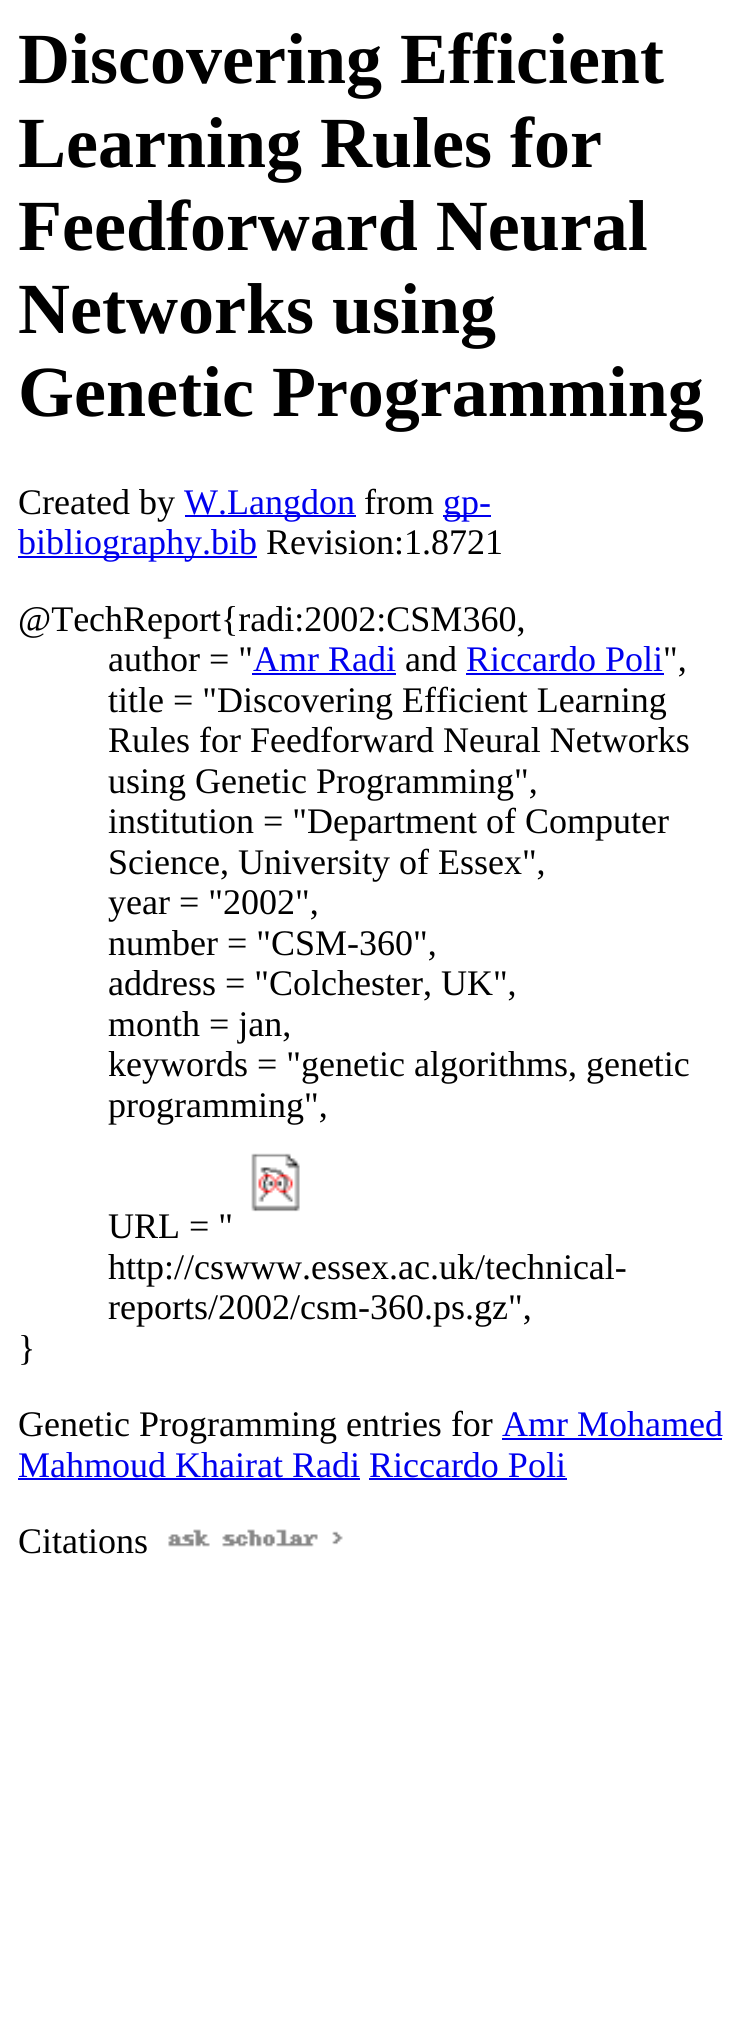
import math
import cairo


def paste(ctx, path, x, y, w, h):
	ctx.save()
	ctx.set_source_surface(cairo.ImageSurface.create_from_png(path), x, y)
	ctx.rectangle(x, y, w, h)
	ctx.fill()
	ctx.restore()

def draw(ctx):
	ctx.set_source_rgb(1, 1, 1)
	ctx.paint()
	ctx.select_font_face('Liberation Serif', cairo.FONT_SLANT_NORMAL, cairo.FONT_WEIGHT_BOLD)
	ctx.set_font_size(72)
	ctx.set_source_rgb(0, 0, 0)
	for x, y, s in [
		(18, 83, 'Discovering Efficient'),
		(18, 167, 'Learning Rules for'),
		(18, 250, 'Feedforward Neural'),
		(18, 333, 'Networks using'),
		(18, 416, 'Genetic Programming'),
	]:
		ctx.move_to(x, y)
		ctx.show_text(s)
	ctx.select_font_face('Liberation Serif')
	ctx.set_font_size(36)
	ctx.move_to(18, 514)
	ctx.show_text('Created by')
	ctx.set_source_rgb(0, 0, 0.933)
	ctx.rectangle(185, 515, 171, 2)
	ctx.fill()
	ctx.move_to(184, 514)
	ctx.show_text('W.Langdon')
	ctx.set_source_rgb(0, 0, 0)
	ctx.move_to(364, 514)
	ctx.show_text('from')
	ctx.set_source_rgb(0, 0, 0.933)
	ctx.rectangle(443, 515, 48, 2)
	ctx.fill()
	ctx.move_to(443, 514)
	ctx.show_text('gp-')
	ctx.rectangle(18, 556, 239, 2)
	ctx.fill()
	ctx.move_to(18, 554)
	ctx.show_text('bibliography.bib')
	ctx.set_source_rgb(0, 0, 0)
	for x, y, s in [
		(266, 554, 'Revision:1.8721'),
		(18, 631, '@TechReport{radi:2002:CSM360,'),
		(108, 671, 'author = "'),
	]:
		ctx.move_to(x, y)
		ctx.show_text(s)
	ctx.set_source_rgb(0, 0, 0.933)
	ctx.move_to(253, 671)
	ctx.show_text('Amr Radi')
	ctx.rectangle(252, 673, 144, 2)
	ctx.fill()
	ctx.set_source_rgb(0, 0, 0)
	ctx.move_to(405, 671)
	ctx.show_text('and')
	ctx.set_source_rgb(0, 0, 0.933)
	ctx.move_to(466, 671)
	ctx.show_text('Riccardo Poli')
	ctx.rectangle(466, 673, 198, 2)
	ctx.fill()
	ctx.set_source_rgb(0, 0, 0)
	for x, y, s in [
		(663, 671, '",'),
		(108, 712, 'title = "Discovering Efficient Learning'),
		(108, 752, 'Rules for Feedforward Neural Networks'),
		(108, 793, 'using Genetic Programming",'),
		(108, 833, 'institution = "Department of Computer'),
		(108, 874, 'Science, University of Essex",'),
		(108, 914, 'year = "2002",'),
		(108, 955, 'number = "CSM-360",'),
		(108, 995, 'address = "Colchester, UK",'),
		(108, 1036, 'month = jan,'),
		(108, 1076, 'keywords = "genetic algorithms, genetic'),
		(108, 1117, 'programming",'),
	]:
		ctx.move_to(x, y)
		ctx.show_text(s)
	paste(ctx, 'media/1.png', 251, 1153, 49, 59)
	for x, y, s in [
		(108, 1238, 'URL = "'),
		(108, 1279, 'http://cswww.essex.ac.uk/technical-'),
		(108, 1319, 'reports/2002/csm-360.ps.gz",'),
		(18, 1360, '}'),
		(18, 1436, 'Genetic Programming entries for'),
	]:
		ctx.move_to(x, y)
		ctx.show_text(s)
	ctx.set_source_rgb(0, 0, 0.933)
	ctx.move_to(502, 1436)
	ctx.show_text('Amr Mohamed')
	ctx.rectangle(502, 1438, 220, 2)
	ctx.fill()
	ctx.move_to(18, 1477)
	ctx.show_text('Mahmoud Khairat Radi Riccardo Poli')
	ctx.rectangle(18, 1478, 342, 2)
	ctx.fill()
	ctx.rectangle(369, 1478, 198, 2)
	ctx.fill()
	ctx.set_source_rgb(0, 0, 0)
	ctx.move_to(18, 1553)
	ctx.show_text('Citations')
	paste(ctx, 'media/2.png', 168, 1529, 175, 18)


surface = cairo.ImageSurface(cairo.FORMAT_RGB24, 743, 2036)
ctx = cairo.Context(surface)
options = cairo.FontOptions()
options.set_hint_metrics(cairo.HINT_METRICS_OFF)
options.set_hint_style(cairo.HINT_STYLE_NONE)
ctx.set_font_options(options)
ctx.set_miter_limit(4)
draw(ctx)
surface.write_to_png('image.png')
